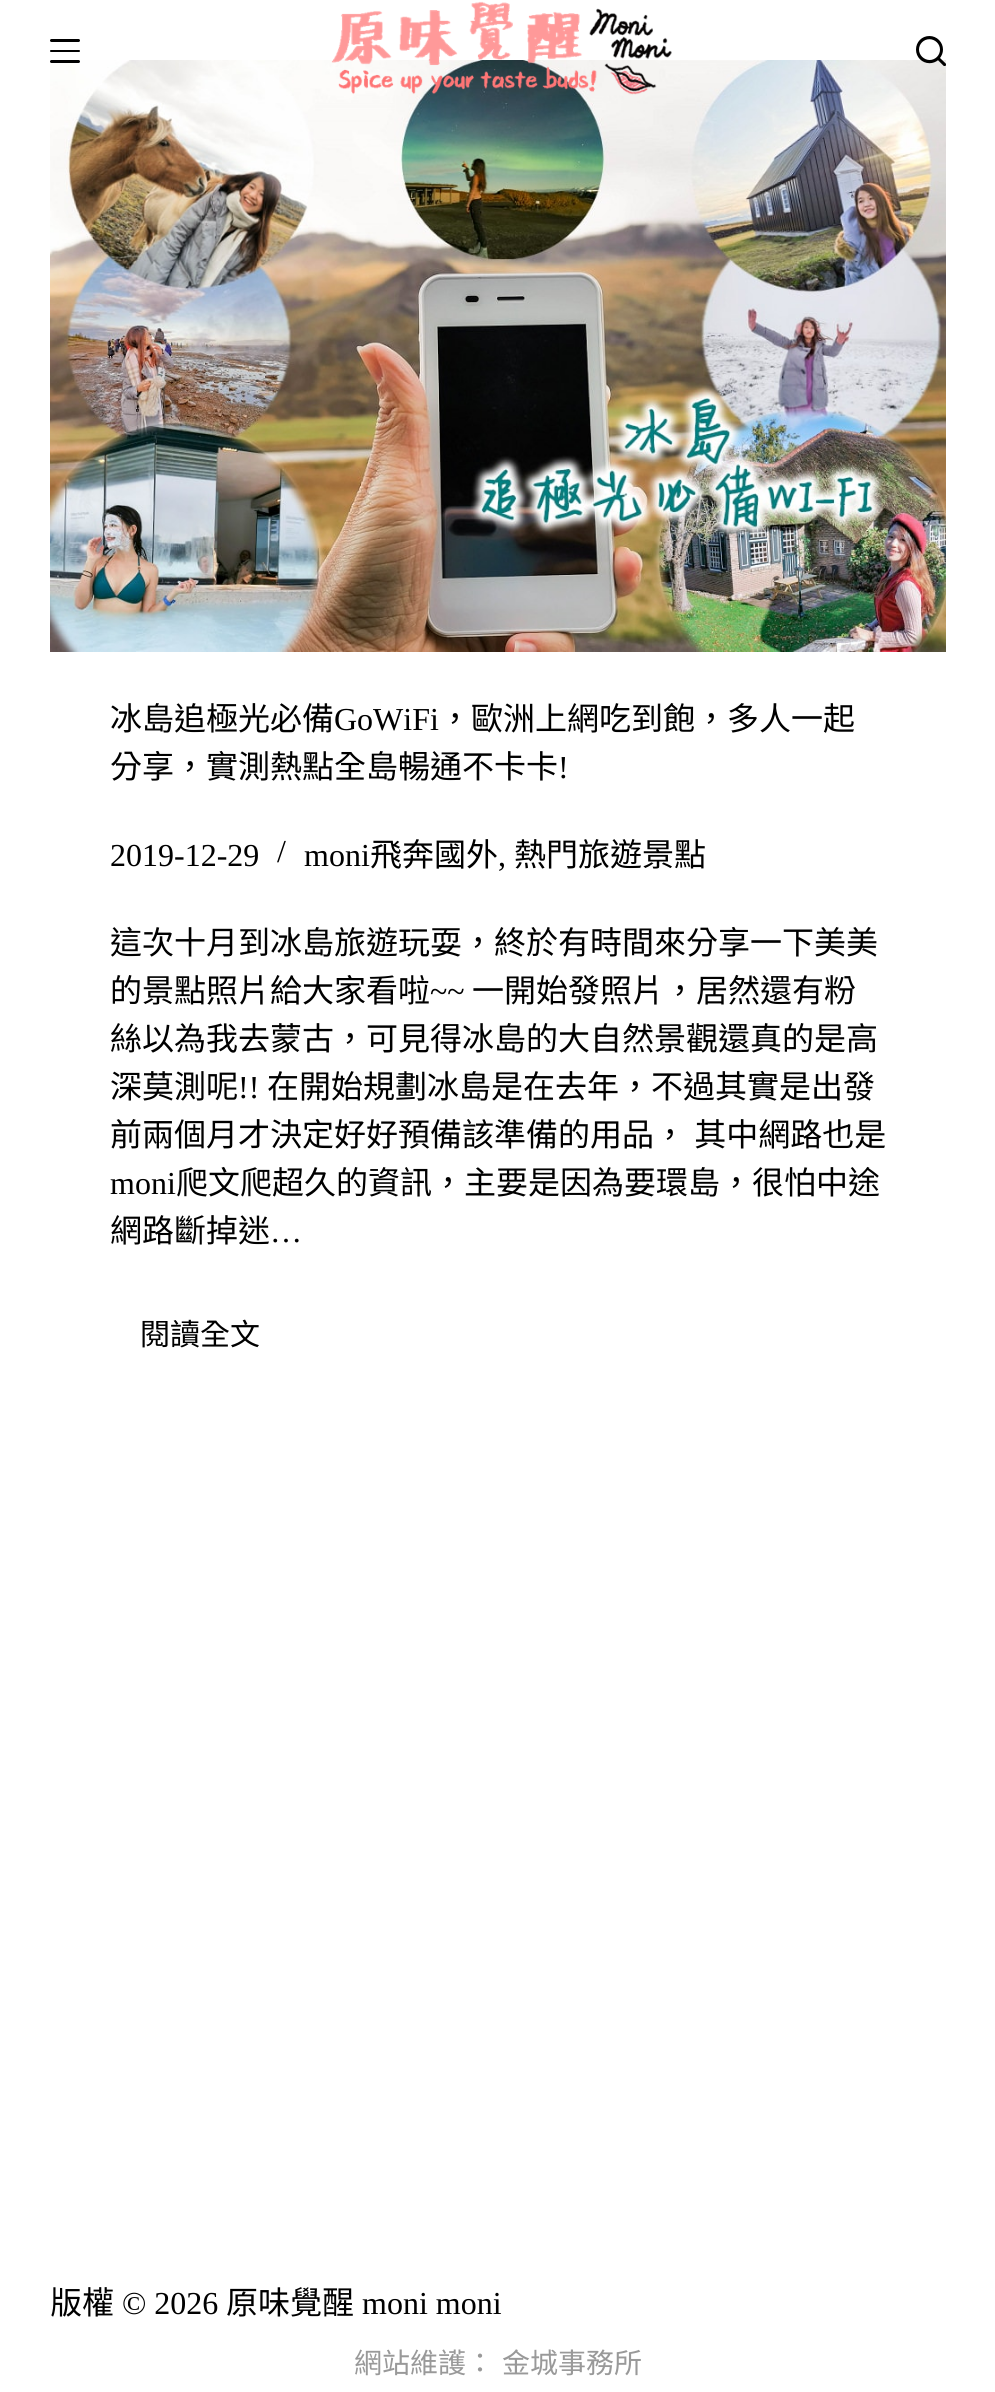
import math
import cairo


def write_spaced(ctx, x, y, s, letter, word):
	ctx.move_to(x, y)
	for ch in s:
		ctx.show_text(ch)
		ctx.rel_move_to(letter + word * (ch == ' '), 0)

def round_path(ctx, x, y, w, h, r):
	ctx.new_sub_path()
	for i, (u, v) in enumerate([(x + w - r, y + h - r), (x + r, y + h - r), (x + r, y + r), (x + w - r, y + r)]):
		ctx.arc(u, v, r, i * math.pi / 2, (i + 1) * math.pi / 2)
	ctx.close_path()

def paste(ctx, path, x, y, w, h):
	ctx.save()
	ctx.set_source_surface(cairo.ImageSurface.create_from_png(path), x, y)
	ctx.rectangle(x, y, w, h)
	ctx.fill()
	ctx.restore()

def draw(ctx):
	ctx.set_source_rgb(1, 1, 1)
	ctx.paint()
	ctx.set_source_rgb(0, 0, 0)
	round_path(ctx, 50, 39, 30, 3, 1.5)
	ctx.fill()
	round_path(ctx, 50, 50, 30, 2, 1)
	ctx.fill()
	paste(ctx, 'media/3.png', 50, 60, 896, 592)
	round_path(ctx, 50, 60, 30, 3, 1.5)
	ctx.fill()
	paste(ctx, 'media/1.png', 331, 1, 341, 94)
	paste(ctx, 'media/2.png', 916, 36, 30, 30)
	ctx.select_font_face('Noto Sans CJK TC')
	ctx.set_font_size(32)
	ctx.move_to(110, 730)
	ctx.show_text('冰島追極光必備')
	ctx.select_font_face('Liberation Serif')
	ctx.move_to(334, 730)
	ctx.show_text('GoWiFi')
	ctx.select_font_face('Noto Sans CJK TC')
	ctx.move_to(439, 730)
	ctx.show_text('，歐洲上網吃到飽，多人一起')
	ctx.move_to(110, 778)
	ctx.show_text('分享，實測熱點全島暢通不卡卡')
	ctx.select_font_face('Liberation Serif')
	for x, y, s in [
		(558, 778, '!'),
		(110, 866, '2019-12-29'),
		(277, 862, '/'),
		(304, 866, 'moni'),
	]:
		ctx.move_to(x, y)
		ctx.show_text(s)
	ctx.select_font_face('Noto Sans CJK TC')
	ctx.move_to(370, 866)
	ctx.show_text('飛奔國外')
	ctx.select_font_face('Liberation Serif')
	ctx.move_to(498, 866)
	ctx.show_text(',')
	ctx.select_font_face('Noto Sans CJK TC')
	for x, y, s in [
		(514, 866, '熱門旅遊景點'),
		(110, 954, '這次十月到冰島旅遊玩耍，終於有時間來分享一下美美'),
		(110, 1002, '的景點照片給大家看啦'),
	]:
		ctx.move_to(x, y)
		ctx.show_text(s)
	ctx.select_font_face('Liberation Serif')
	ctx.move_to(430, 1002)
	ctx.show_text('~~')
	ctx.select_font_face('Noto Sans CJK TC')
	for x, y, s in [
		(472, 1002, '一開始發照片，居然還有粉'),
		(110, 1050, '絲以為我去蒙古，可見得冰島的大自然景觀還真的是高'),
		(110, 1098, '深莫測呢'),
	]:
		ctx.move_to(x, y)
		ctx.show_text(s)
	ctx.select_font_face('Liberation Serif')
	ctx.move_to(238, 1098)
	ctx.show_text('!!')
	ctx.select_font_face('Noto Sans CJK TC')
	ctx.move_to(267, 1098)
	ctx.show_text('在開始規劃冰島是在去年，不過其實是出發')
	write_spaced(ctx, 110, 1146, '前兩個月才決定好好預備該準備的用品， 其中網路也是', 0, 1)
	ctx.select_font_face('Liberation Serif')
	ctx.move_to(110, 1194)
	ctx.show_text('moni')
	ctx.select_font_face('Noto Sans CJK TC')
	ctx.move_to(176, 1194)
	ctx.show_text('爬文爬超久的資訊，主要是因為要環島，很怕中途')
	ctx.move_to(110, 1242)
	ctx.show_text('網路斷掉迷')
	ctx.select_font_face('Liberation Serif')
	ctx.move_to(270, 1242)
	ctx.show_text('…')
	ctx.select_font_face('Noto Sans CJK TC')
	ctx.set_font_size(30)
	ctx.move_to(140, 1345)
	ctx.show_text('閱讀全文')
	ctx.set_font_size(32)
	ctx.move_to(50, 2314)
	ctx.show_text('版權')
	ctx.select_font_face('Liberation Serif')
	ctx.move_to(122, 2314)
	ctx.show_text('© 2026')
	ctx.select_font_face('Noto Sans CJK TC')
	ctx.move_to(226, 2314)
	ctx.show_text('原味覺醒')
	ctx.select_font_face('Liberation Serif')
	ctx.move_to(362, 2314)
	ctx.show_text('moni moni')
	ctx.select_font_face('Noto Sans CJK TC')
	ctx.set_font_size(28)
	ctx.set_source_rgb(0.6, 0.6, 0.6)
	ctx.move_to(354, 2373)
	ctx.show_text('網站維護：')
	ctx.move_to(502, 2373)
	ctx.show_text('金城事務所')


surface = cairo.ImageSurface(cairo.FORMAT_RGB24, 995, 2392)
ctx = cairo.Context(surface)
options = cairo.FontOptions()
options.set_hint_metrics(cairo.HINT_METRICS_OFF)
options.set_hint_style(cairo.HINT_STYLE_NONE)
ctx.set_font_options(options)
ctx.set_miter_limit(4)
draw(ctx)
surface.write_to_png('image.png')
